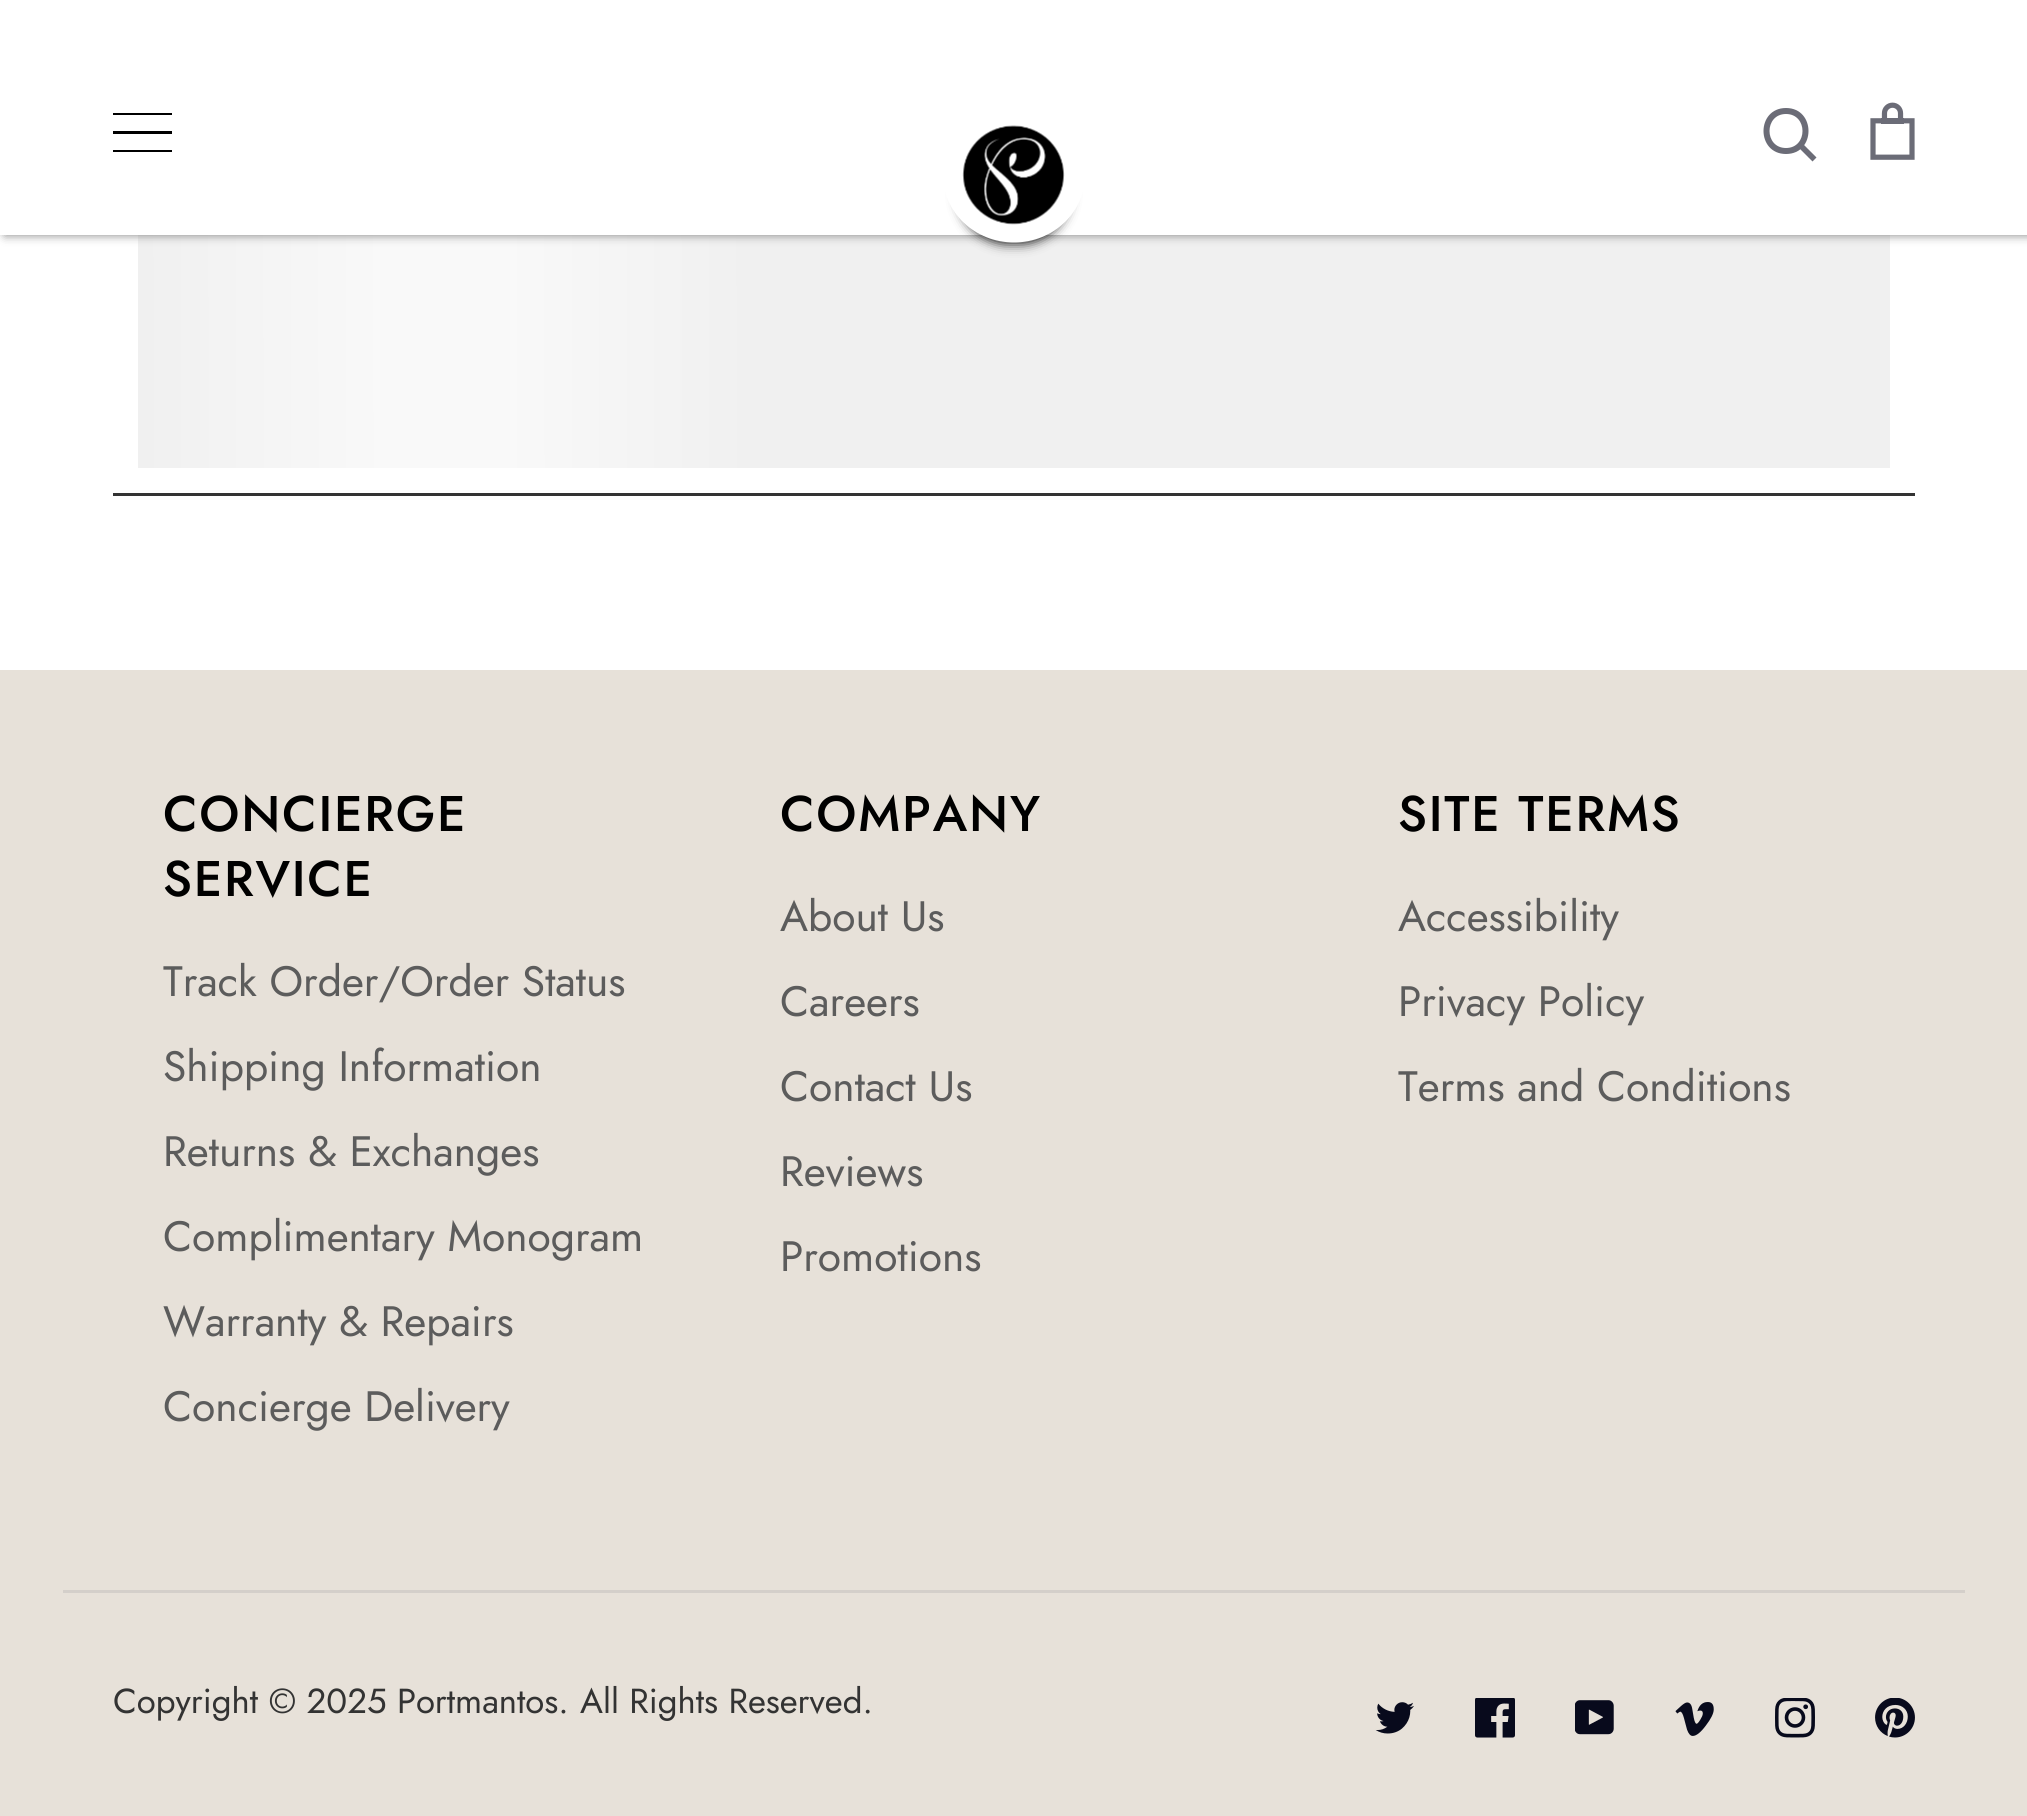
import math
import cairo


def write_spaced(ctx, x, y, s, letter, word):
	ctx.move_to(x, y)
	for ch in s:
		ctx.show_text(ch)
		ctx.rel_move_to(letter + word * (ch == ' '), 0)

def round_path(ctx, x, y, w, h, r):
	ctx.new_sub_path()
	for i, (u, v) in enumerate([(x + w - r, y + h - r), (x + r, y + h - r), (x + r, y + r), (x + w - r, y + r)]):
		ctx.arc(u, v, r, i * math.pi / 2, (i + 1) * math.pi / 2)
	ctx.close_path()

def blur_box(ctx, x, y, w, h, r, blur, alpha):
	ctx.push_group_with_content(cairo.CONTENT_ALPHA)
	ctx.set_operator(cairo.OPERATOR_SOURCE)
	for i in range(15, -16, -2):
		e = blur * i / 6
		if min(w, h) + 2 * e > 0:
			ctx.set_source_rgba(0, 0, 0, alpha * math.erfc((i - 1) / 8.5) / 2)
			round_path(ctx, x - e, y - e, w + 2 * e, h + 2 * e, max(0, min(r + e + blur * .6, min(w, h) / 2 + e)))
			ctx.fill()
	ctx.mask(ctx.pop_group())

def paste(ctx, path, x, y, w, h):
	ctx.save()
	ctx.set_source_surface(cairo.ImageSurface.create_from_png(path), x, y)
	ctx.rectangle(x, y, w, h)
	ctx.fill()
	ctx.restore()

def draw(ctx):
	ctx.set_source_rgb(1, 1, 1)
	ctx.paint()
	ctx.set_source_rgb(0.2, 0.2, 0.2)
	ctx.rectangle(113, 493, 1802, 3)
	ctx.fill()
	ctx.set_source_rgb(0.941, 0.941, 0.941)
	ctx.rectangle(138, 235, 1752, 233)
	ctx.fill()
	gradient = cairo.LinearGradient(138, -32, 751, -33)
	gradient.add_color_stop_rgba(0, 0.941, 0.941, 0.941, 1)
	gradient.add_color_stop_rgba(0.4, 0.976, 0.976, 0.976, 1)
	gradient.add_color_stop_rgba(0.6, 0.976, 0.976, 0.976, 1)
	gradient.add_color_stop_rgba(1, 0.941, 0.941, 0.941, 1)
	ctx.set_source(gradient)
	ctx.new_path()
	ctx.move_to(151, -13)
	ctx.line_to(750, -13)
	ctx.line_to(750, 468)
	ctx.line_to(151, 468)
	ctx.curve_to(144, 468, 138, 462, 138, 455)
	ctx.line_to(138, 0)
	ctx.curve_to(138, -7, 144, -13, 151, -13)
	ctx.close_path()
	ctx.fill()
	ctx.set_source_rgb(0.502, 0.502, 0.502)
	blur_box(ctx, 5, -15, 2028, 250, 0, 5, 1)
	ctx.set_source_rgb(1, 1, 1)
	ctx.rectangle(0, 0, 2027, 235)
	ctx.fill()
	ctx.set_source_rgb(0, 0, 0)
	ctx.rectangle(113, 113, 59, 2)
	ctx.rectangle(113, 131, 59, 3)
	ctx.rectangle(113, 150, 59, 2)
	ctx.fill()
	ctx.set_source_rgb(0, 0, 0)
	blur_box(ctx, 960, 143, 108, 100, 50, 6, 1)
	ctx.set_source_rgb(1, 1, 1)
	ctx.new_path()
	ctx.move_to(1014, 107.5)
	ctx.curve_to(1053, 107.5, 1085, 137.5, 1085, 175)
	ctx.curve_to(1085, 212.5, 1053, 242.5, 1014, 242.5)
	ctx.curve_to(975, 242.5, 943, 212.5, 943, 175)
	ctx.curve_to(943, 137.5, 975, 107.5, 1014, 107.5)
	ctx.close_path()
	ctx.fill()
	paste(ctx, 'media/1.png', 962, 125, 103, 100)
	ctx.set_source_rgb(0.42, 0.424, 0.467)
	ctx.new_path()
	ctx.move_to(1816.5, 157.5)
	ctx.line_to(1812.5, 161.5)
	ctx.line_to(1799.5, 148.5)
	ctx.line_to(1803.5, 144.5)
	ctx.close_path()
	ctx.fill()
	ctx.new_path()
	ctx.move_to(1786, 154)
	ctx.curve_to(1756, 154, 1756, 108, 1786, 108)
	ctx.curve_to(1816, 108, 1816, 154, 1786, 154)
	ctx.close_path()
	ctx.move_to(1786, 148)
	ctx.curve_to(1808, 148, 1808, 114, 1786, 114)
	ctx.curve_to(1764, 114, 1764, 148, 1786, 148)
	ctx.close_path()
	ctx.fill()
	paste(ctx, 'media/2.png', 1870, 102, 45, 58)
	ctx.set_source_rgb(0.906, 0.882, 0.851)
	ctx.rectangle(0, 670, 2027, 1146)
	ctx.fill()
	ctx.set_source_rgb(0.831, 0.812, 0.792)
	ctx.rectangle(63, 1590, 1902, 3)
	ctx.fill()
	ctx.select_font_face('Jost Medium')
	ctx.set_font_size(50)
	ctx.set_source_rgb(0, 0, 0)
	write_spaced(ctx, 163, 831, 'CONCIERGE', 1.75, 0)
	write_spaced(ctx, 163, 896, 'SERVICE', 1.75, 0)
	ctx.select_font_face('Jost')
	ctx.set_font_size(42.5)
	ctx.set_source_rgb(0.361, 0.361, 0.361)
	for x, y, s in [
		(163, 996, 'Track Order/Order Status'),
		(163, 1081, 'Shipping Information'),
		(163, 1166, 'Returns & Exchanges'),
		(163, 1251, 'Complimentary Monogram'),
		(163, 1336, 'Warranty & Repairs'),
		(163, 1421, 'Concierge Delivery'),
	]:
		ctx.move_to(x, y)
		ctx.show_text(s)
	ctx.select_font_face('Jost Medium')
	ctx.set_font_size(50)
	ctx.set_source_rgb(0, 0, 0)
	write_spaced(ctx, 780, 831, 'COMPANY', 1.75, 0)
	ctx.select_font_face('Jost')
	ctx.set_font_size(42.5)
	ctx.set_source_rgb(0.361, 0.361, 0.361)
	for x, y, s in [
		(780, 931, 'About Us'),
		(780, 1016, 'Careers'),
		(780, 1101, 'Contact Us'),
		(780, 1186, 'Reviews'),
		(780, 1271, 'Promotions'),
	]:
		ctx.move_to(x, y)
		ctx.show_text(s)
	ctx.select_font_face('Jost Medium')
	ctx.set_font_size(50)
	ctx.set_source_rgb(0, 0, 0)
	write_spaced(ctx, 1398, 831, 'SITE TERMS', 1.75, 0)
	ctx.select_font_face('Jost')
	ctx.set_font_size(42.5)
	ctx.set_source_rgb(0.361, 0.361, 0.361)
	for x, y, s in [
		(1398, 931, 'Accessibility'),
		(1398, 1016, 'Privacy Policy'),
		(1398, 1101, 'Terms and Conditions'),
	]:
		ctx.move_to(x, y)
		ctx.show_text(s)
	ctx.set_font_size(34.7)
	ctx.set_source_rgb(0.2, 0.2, 0.2)
	ctx.move_to(113, 1713)
	ctx.show_text('Copyright © 2025 Portmantos.')
	ctx.move_to(580, 1713)
	ctx.show_text('All Rights Reserved.')
	paste(ctx, 'media/3.png', 1375, 1702, 39, 32)
	paste(ctx, 'media/4.png', 1475, 1698, 40, 40)
	paste(ctx, 'media/5.png', 1575, 1700, 39, 35)
	paste(ctx, 'media/6.png', 1675, 1702, 39, 34)
	paste(ctx, 'media/7.png', 1775, 1698, 40, 40)
	paste(ctx, 'media/8.png', 1875, 1698, 40, 40)


surface = cairo.ImageSurface(cairo.FORMAT_RGB24, 2027, 1816)
ctx = cairo.Context(surface)
options = cairo.FontOptions()
options.set_hint_metrics(cairo.HINT_METRICS_OFF)
options.set_hint_style(cairo.HINT_STYLE_NONE)
ctx.set_font_options(options)
ctx.set_miter_limit(4)
draw(ctx)
surface.write_to_png('image.png')
